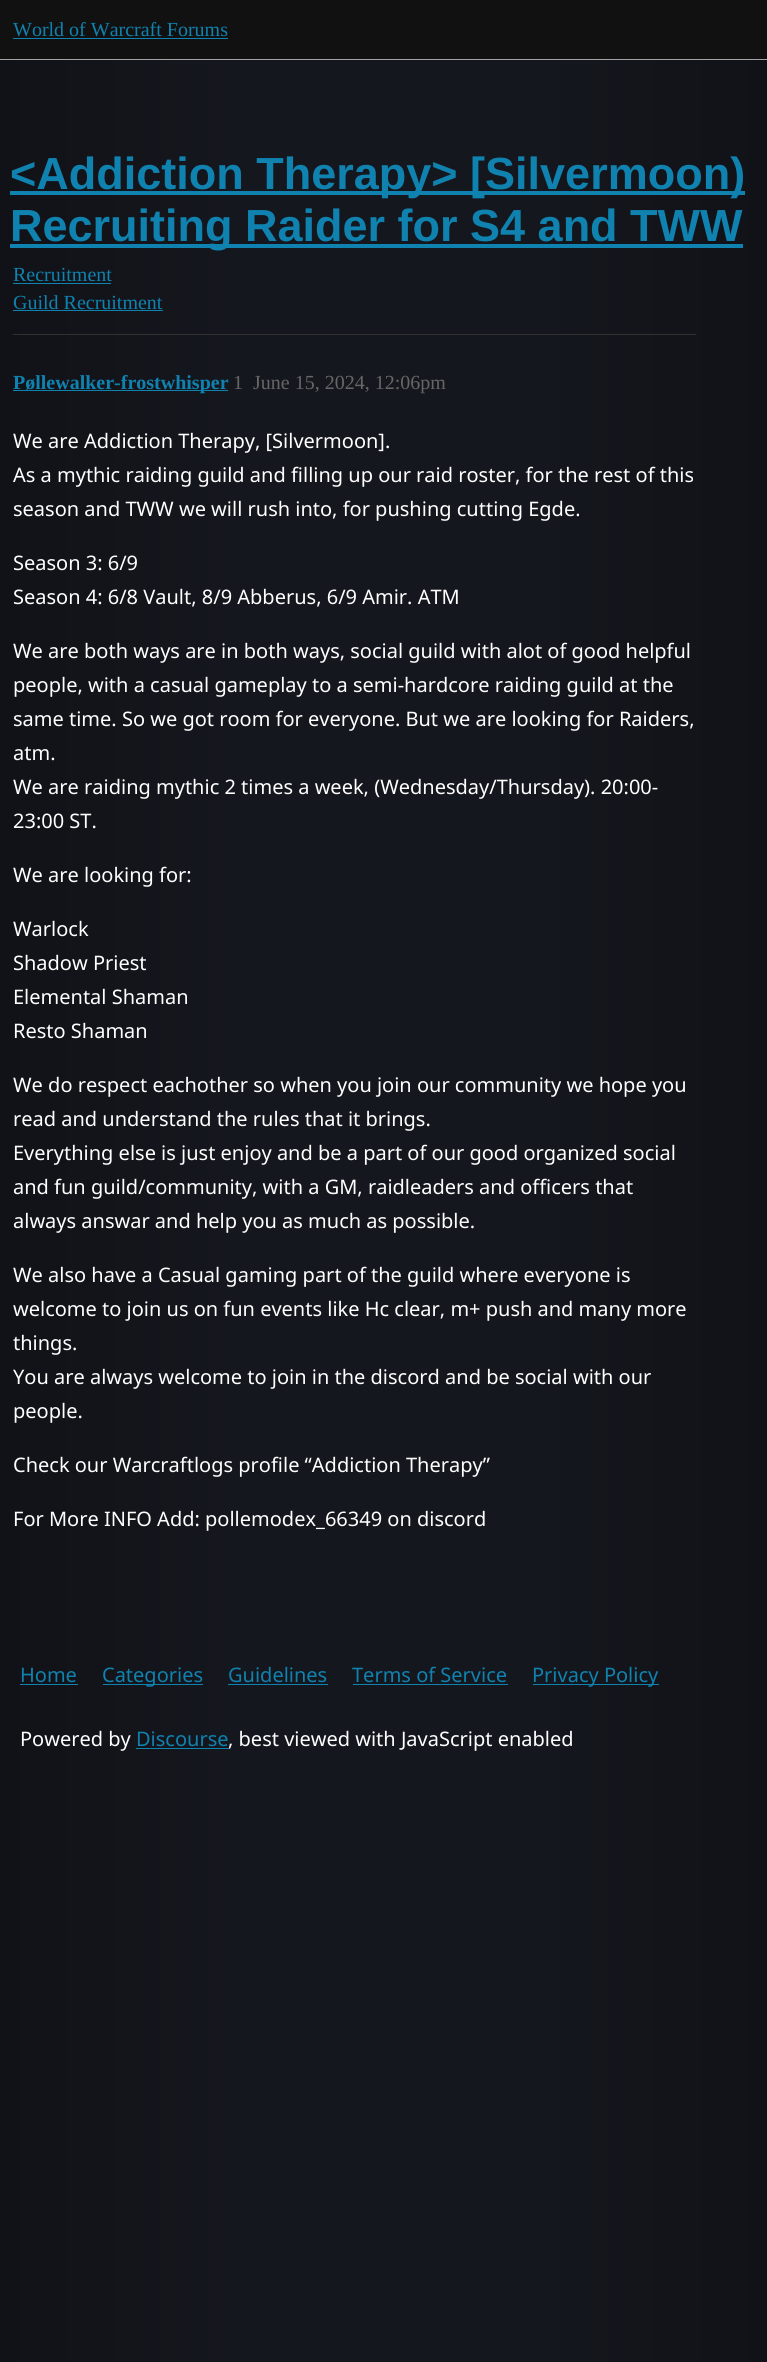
import math
import cairo


def draw(ctx):
	ctx.set_source_rgb(1, 1, 1)
	ctx.paint()
	gradient = cairo.LinearGradient(0, 1181, 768, 1181)
	gradient.add_color_stop_rgba(0, 0.067, 0.071, 0.09, 1)
	gradient.add_color_stop_rgba(0.3, 0.082, 0.09, 0.118, 1)
	gradient.add_color_stop_rgba(0.7, 0.082, 0.09, 0.118, 1)
	gradient.add_color_stop_rgba(1, 0.067, 0.071, 0.09, 1)
	ctx.set_source(gradient)
	ctx.rectangle(0, 60, 767, 2302)
	ctx.fill()
	ctx.set_source_rgb(0.067, 0.067, 0.067)
	ctx.rectangle(0, 0, 767, 59)
	ctx.fill()
	ctx.set_source_rgb(0.643, 0.643, 0.643)
	ctx.rectangle(0, 59, 767, 1)
	ctx.fill()
	ctx.select_font_face('Liberation Serif')
	ctx.set_font_size(20)
	ctx.set_source_rgb(0.059, 0.51, 0.686)
	ctx.move_to(13, 36)
	ctx.show_text('World of Warcraft Forums')
	ctx.rectangle(13, 38, 215, 1)
	ctx.fill()
	ctx.rectangle(10, 191, 735, 4)
	ctx.fill()
	ctx.select_font_face('Liberation Sans', cairo.FONT_SLANT_NORMAL, cairo.FONT_WEIGHT_BOLD)
	ctx.set_font_size(45)
	ctx.move_to(10, 189)
	ctx.show_text('<Addiction Therapy> [Silvermoon)')
	ctx.rectangle(10, 244, 733, 4)
	ctx.fill()
	ctx.move_to(10, 241)
	ctx.show_text('Recruiting Raider for S4 and TWW')
	ctx.select_font_face('Liberation Serif')
	ctx.set_font_size(20)
	ctx.move_to(13, 281)
	ctx.show_text('Recruitment')
	ctx.rectangle(13, 283, 98, 1)
	ctx.fill()
	ctx.move_to(13, 309)
	ctx.show_text('Guild Recruitment')
	ctx.rectangle(13, 310, 150, 1)
	ctx.fill()
	ctx.set_source_rgb(0.192, 0.192, 0.192)
	ctx.rectangle(13, 334, 683, 1)
	ctx.fill()
	ctx.set_source_rgb(0.059, 0.51, 0.686)
	ctx.rectangle(13, 390, 215, 1)
	ctx.fill()
	ctx.select_font_face('Liberation Serif', cairo.FONT_SLANT_NORMAL, cairo.FONT_WEIGHT_BOLD)
	ctx.move_to(13, 389)
	ctx.show_text('Pøllewalker-frostwhisper')
	ctx.select_font_face('Liberation Serif')
	ctx.set_source_rgb(0.4, 0.4, 0.4)
	ctx.move_to(233, 389)
	ctx.show_text('1')
	ctx.move_to(253, 389)
	ctx.show_text('June 15, 2024, 12:06pm')
	ctx.select_font_face('Noto Sans')
	ctx.set_source_rgb(1, 1, 1)
	for x, y, s in [
		(13, 448, 'We are Addiction Therapy, [Silvermoon].'),
		(13, 482, 'As a mythic raiding guild and filling up our raid roster, for the rest of this'),
		(13, 516, 'season and TWW we will rush into, for pushing cutting Egde.'),
		(13, 570, 'Season 3: 6/9'),
		(13, 604, 'Season 4: 6/8 Vault, 8/9 Abberus, 6/9 Amir. ATM'),
		(13, 658, 'We are both ways are in both ways, social guild with alot of good helpful'),
		(13, 692, 'people, with a casual gameplay to a semi-hardcore raiding guild at the'),
		(13, 726, 'same time. So we got room for everyone. But we are looking for Raiders,'),
		(13, 760, 'atm.'),
		(13, 794, 'We are raiding mythic 2 times a week, (Wednesday/Thursday). 20:00-'),
		(13, 828, '23:00 ST.'),
		(13, 882, 'We are looking for:'),
		(13, 936, 'Warlock'),
		(13, 970, 'Shadow Priest'),
		(13, 1004, 'Elemental Shaman'),
		(13, 1038, 'Resto Shaman'),
		(13, 1092, 'We do respect eachother so when you join our community we hope you'),
		(13, 1126, 'read and understand the rules that it brings.'),
		(13, 1160, 'Everything else is just enjoy and be a part of our good organized social'),
		(13, 1194, 'and fun guild/community, with a GM, raidleaders and officers that'),
		(13, 1228, 'always answar and help you as much as possible.'),
		(13, 1282, 'We also have a Casual gaming part of the guild where everyone is'),
		(13, 1316, 'welcome to join us on fun events like Hc clear, m+ push and many more'),
		(13, 1350, 'things.'),
		(13, 1384, 'You are always welcome to join in the discord and be social with our'),
		(13, 1418, 'people.'),
		(13, 1472, 'Check our Warcraftlogs profile “Addiction Therapy”'),
		(13, 1526, 'For More INFO Add: pollemodex_66349 on discord'),
	]:
		ctx.move_to(x, y)
		ctx.show_text(s)
	ctx.set_source_rgb(0.059, 0.51, 0.686)
	ctx.move_to(20, 1682)
	ctx.show_text('Home')
	ctx.rectangle(20, 1684, 58, 1)
	ctx.fill()
	ctx.rectangle(103, 1684, 100, 1)
	ctx.fill()
	ctx.move_to(102, 1682)
	ctx.show_text('Categories')
	ctx.move_to(228, 1682)
	ctx.show_text('Guidelines')
	ctx.rectangle(228, 1684, 100, 1)
	ctx.fill()
	ctx.move_to(352, 1682)
	ctx.show_text('Terms of Service')
	ctx.rectangle(353, 1684, 155, 1)
	ctx.fill()
	ctx.rectangle(533, 1684, 126, 1)
	ctx.fill()
	ctx.move_to(532, 1682)
	ctx.show_text('Privacy Policy')
	ctx.set_source_rgb(1, 1, 1)
	ctx.move_to(20, 1746)
	ctx.show_text('Powered by')
	ctx.set_source_rgb(0.059, 0.51, 0.686)
	ctx.move_to(136, 1746)
	ctx.show_text('Discourse')
	ctx.rectangle(136, 1748, 93, 1)
	ctx.fill()
	ctx.set_source_rgb(1, 1, 1)
	ctx.move_to(228, 1746)
	ctx.show_text(', best viewed with JavaScript enabled')


surface = cairo.ImageSurface(cairo.FORMAT_RGB24, 767, 2362)
ctx = cairo.Context(surface)
options = cairo.FontOptions()
options.set_hint_metrics(cairo.HINT_METRICS_OFF)
options.set_hint_style(cairo.HINT_STYLE_NONE)
ctx.set_font_options(options)
ctx.set_miter_limit(4)
draw(ctx)
surface.write_to_png('image.png')
